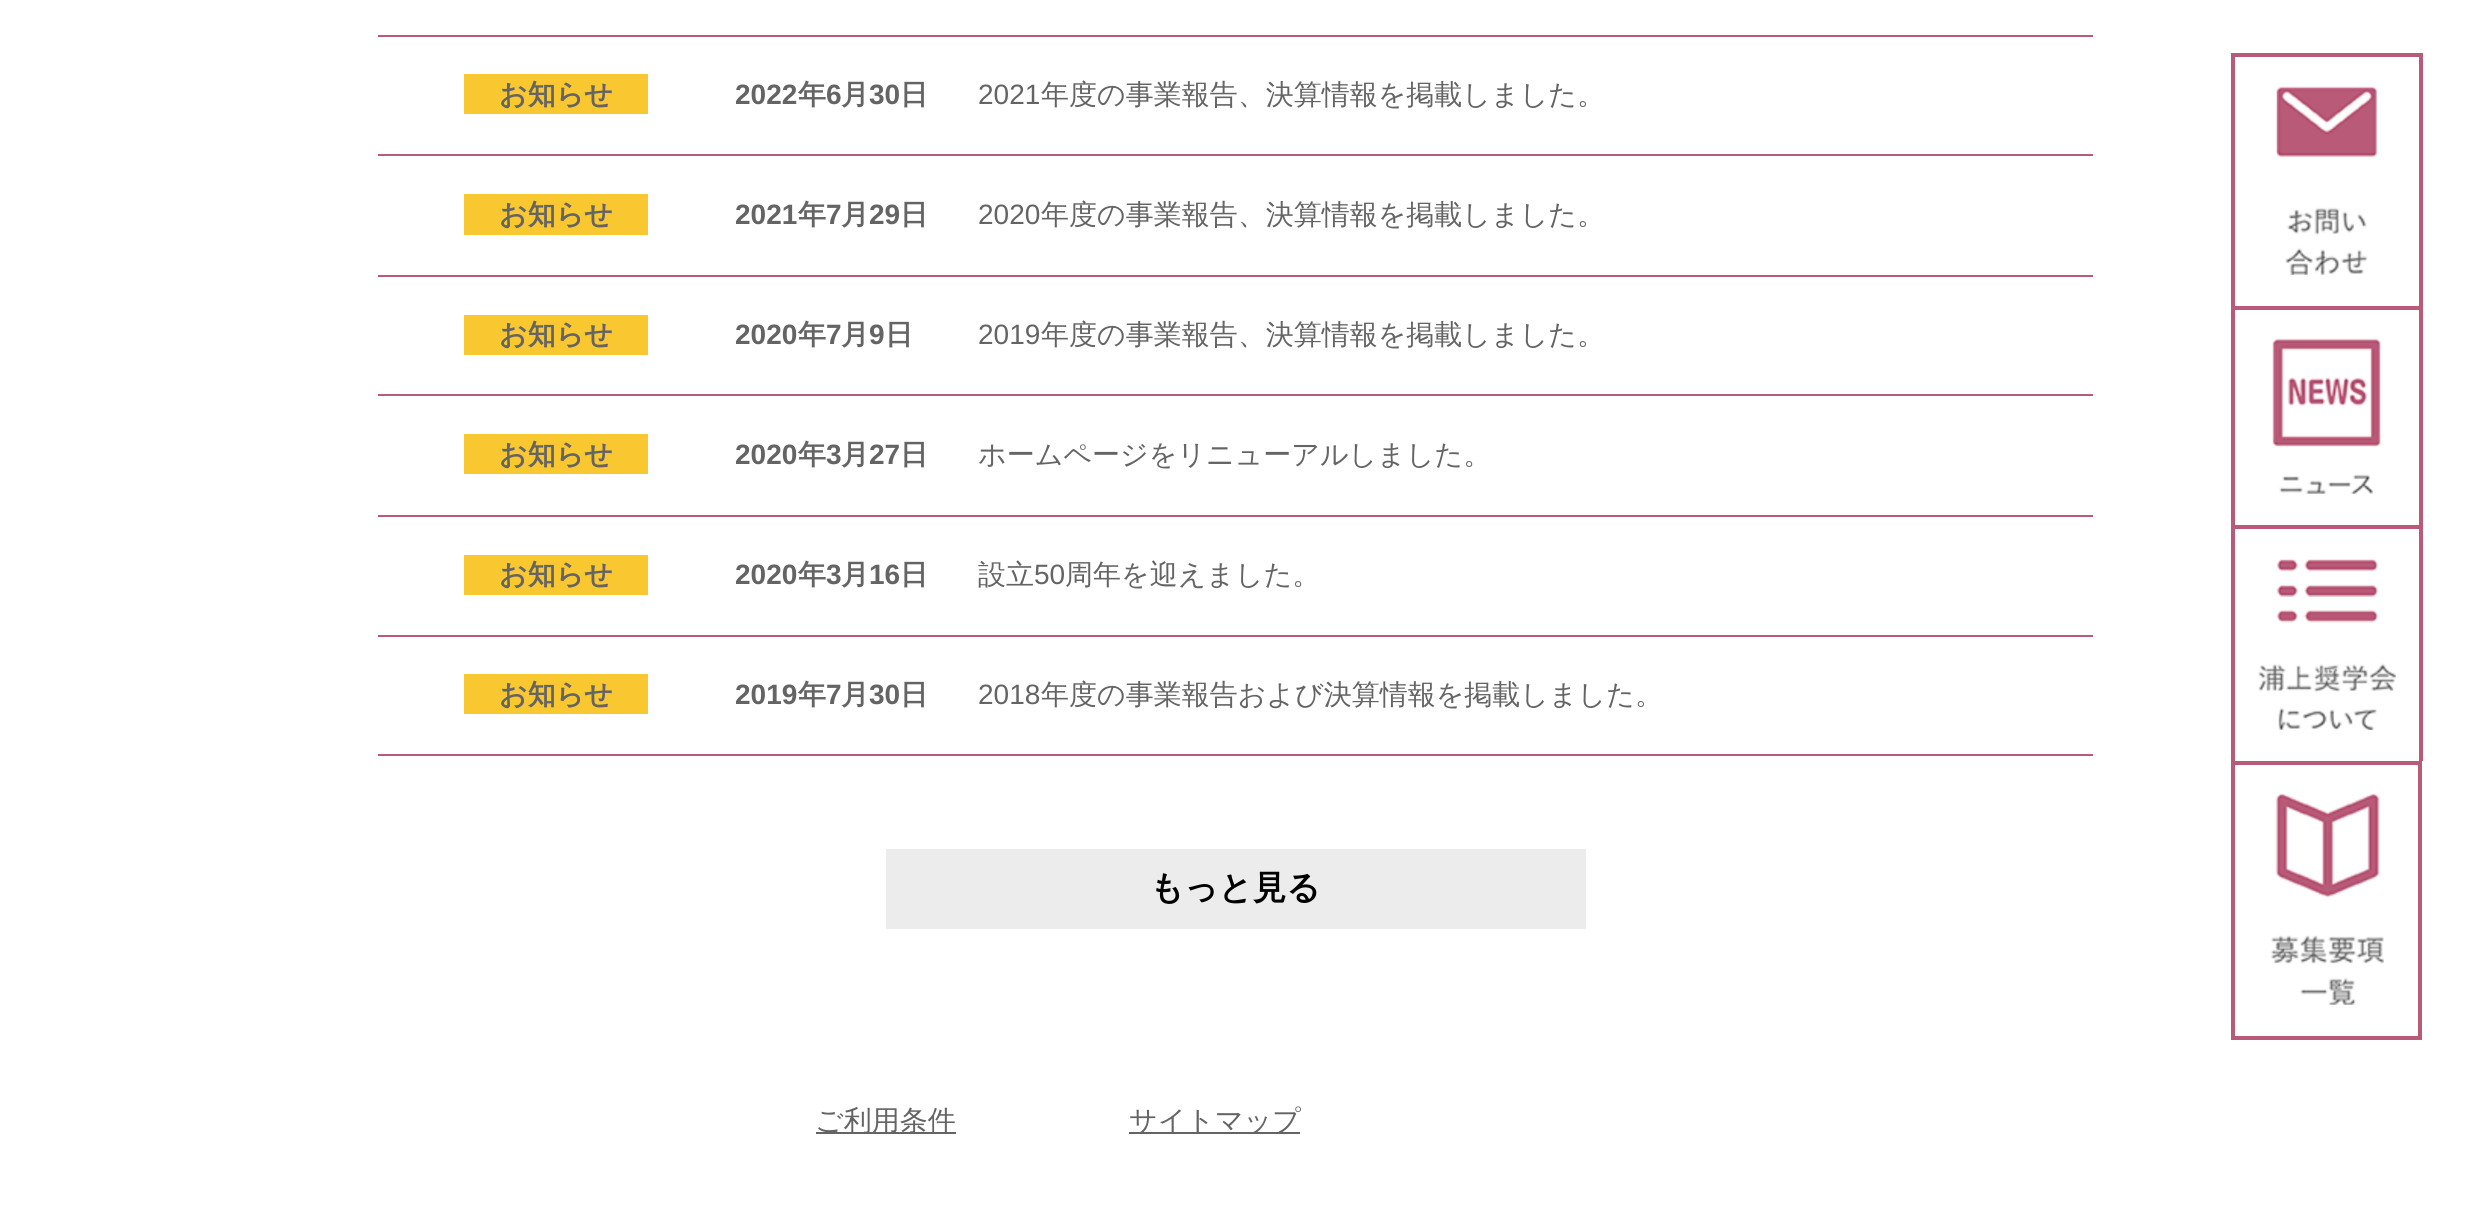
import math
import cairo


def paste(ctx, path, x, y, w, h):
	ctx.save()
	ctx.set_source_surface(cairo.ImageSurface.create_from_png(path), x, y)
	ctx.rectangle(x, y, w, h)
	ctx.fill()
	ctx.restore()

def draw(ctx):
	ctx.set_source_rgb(1, 1, 1)
	ctx.paint()
	ctx.set_source_rgb(0.725, 0.353, 0.471)
	ctx.rectangle(378, 35, 1715, 2)
	ctx.rectangle(378, 154, 1715, 2)
	ctx.fill()
	ctx.set_source_rgb(0.976, 0.784, 0.192)
	ctx.rectangle(464, 74, 184, 40)
	ctx.fill()
	ctx.select_font_face('WenQuanYi Zen Hei', cairo.FONT_SLANT_NORMAL, cairo.FONT_WEIGHT_BOLD)
	ctx.set_font_size(28)
	ctx.set_source_rgb(0.392, 0.392, 0.392)
	ctx.move_to(499, 104)
	ctx.show_text('お知らせ')
	ctx.select_font_face('Liberation Sans', cairo.FONT_SLANT_NORMAL, cairo.FONT_WEIGHT_BOLD)
	ctx.move_to(735, 104)
	ctx.show_text('2022')
	ctx.select_font_face('WenQuanYi Zen Hei', cairo.FONT_SLANT_NORMAL, cairo.FONT_WEIGHT_BOLD)
	ctx.move_to(798, 104)
	ctx.show_text('年')
	ctx.select_font_face('Liberation Sans', cairo.FONT_SLANT_NORMAL, cairo.FONT_WEIGHT_BOLD)
	ctx.move_to(826, 104)
	ctx.show_text('6')
	ctx.select_font_face('WenQuanYi Zen Hei', cairo.FONT_SLANT_NORMAL, cairo.FONT_WEIGHT_BOLD)
	ctx.move_to(841, 104)
	ctx.show_text('月')
	ctx.select_font_face('Liberation Sans', cairo.FONT_SLANT_NORMAL, cairo.FONT_WEIGHT_BOLD)
	ctx.move_to(869, 104)
	ctx.show_text('30')
	ctx.select_font_face('WenQuanYi Zen Hei', cairo.FONT_SLANT_NORMAL, cairo.FONT_WEIGHT_BOLD)
	ctx.move_to(900, 104)
	ctx.show_text('日')
	ctx.select_font_face('Liberation Sans')
	ctx.move_to(978, 104)
	ctx.show_text('2021')
	ctx.select_font_face('WenQuanYi Zen Hei Medium')
	ctx.move_to(1041, 104)
	ctx.show_text('年度の事業報告、決算情報を掲載しました。')
	ctx.set_source_rgb(0.725, 0.353, 0.471)
	ctx.rectangle(378, 275, 1715, 2)
	ctx.fill()
	ctx.set_source_rgb(0.976, 0.784, 0.192)
	ctx.rectangle(464, 194, 184, 41)
	ctx.fill()
	ctx.select_font_face('WenQuanYi Zen Hei', cairo.FONT_SLANT_NORMAL, cairo.FONT_WEIGHT_BOLD)
	ctx.set_source_rgb(0.392, 0.392, 0.392)
	ctx.move_to(499, 224)
	ctx.show_text('お知らせ')
	ctx.select_font_face('Liberation Sans', cairo.FONT_SLANT_NORMAL, cairo.FONT_WEIGHT_BOLD)
	ctx.move_to(735, 224)
	ctx.show_text('2021')
	ctx.select_font_face('WenQuanYi Zen Hei', cairo.FONT_SLANT_NORMAL, cairo.FONT_WEIGHT_BOLD)
	ctx.move_to(798, 224)
	ctx.show_text('年')
	ctx.select_font_face('Liberation Sans', cairo.FONT_SLANT_NORMAL, cairo.FONT_WEIGHT_BOLD)
	ctx.move_to(826, 224)
	ctx.show_text('7')
	ctx.select_font_face('WenQuanYi Zen Hei', cairo.FONT_SLANT_NORMAL, cairo.FONT_WEIGHT_BOLD)
	ctx.move_to(841, 224)
	ctx.show_text('月')
	ctx.select_font_face('Liberation Sans', cairo.FONT_SLANT_NORMAL, cairo.FONT_WEIGHT_BOLD)
	ctx.move_to(869, 224)
	ctx.show_text('29')
	ctx.select_font_face('WenQuanYi Zen Hei', cairo.FONT_SLANT_NORMAL, cairo.FONT_WEIGHT_BOLD)
	ctx.move_to(900, 224)
	ctx.show_text('日')
	ctx.select_font_face('Liberation Sans')
	ctx.move_to(978, 224)
	ctx.show_text('2020')
	ctx.select_font_face('WenQuanYi Zen Hei Medium')
	ctx.move_to(1041, 224)
	ctx.show_text('年度の事業報告、決算情報を掲載しました。')
	ctx.set_source_rgb(0.725, 0.353, 0.471)
	ctx.rectangle(378, 394, 1715, 2)
	ctx.fill()
	ctx.set_source_rgb(0.976, 0.784, 0.192)
	ctx.rectangle(464, 315, 184, 40)
	ctx.fill()
	ctx.select_font_face('WenQuanYi Zen Hei', cairo.FONT_SLANT_NORMAL, cairo.FONT_WEIGHT_BOLD)
	ctx.set_source_rgb(0.392, 0.392, 0.392)
	ctx.move_to(499, 344)
	ctx.show_text('お知らせ')
	ctx.select_font_face('Liberation Sans', cairo.FONT_SLANT_NORMAL, cairo.FONT_WEIGHT_BOLD)
	ctx.move_to(735, 344)
	ctx.show_text('2020')
	ctx.select_font_face('WenQuanYi Zen Hei', cairo.FONT_SLANT_NORMAL, cairo.FONT_WEIGHT_BOLD)
	ctx.move_to(798, 344)
	ctx.show_text('年')
	ctx.select_font_face('Liberation Sans', cairo.FONT_SLANT_NORMAL, cairo.FONT_WEIGHT_BOLD)
	ctx.move_to(826, 344)
	ctx.show_text('7')
	ctx.select_font_face('WenQuanYi Zen Hei', cairo.FONT_SLANT_NORMAL, cairo.FONT_WEIGHT_BOLD)
	ctx.move_to(841, 344)
	ctx.show_text('月')
	ctx.select_font_face('Liberation Sans', cairo.FONT_SLANT_NORMAL, cairo.FONT_WEIGHT_BOLD)
	ctx.move_to(869, 344)
	ctx.show_text('9')
	ctx.select_font_face('WenQuanYi Zen Hei', cairo.FONT_SLANT_NORMAL, cairo.FONT_WEIGHT_BOLD)
	ctx.move_to(885, 344)
	ctx.show_text('日')
	ctx.select_font_face('Liberation Sans')
	ctx.move_to(978, 344)
	ctx.show_text('2019')
	ctx.select_font_face('WenQuanYi Zen Hei Medium')
	ctx.move_to(1041, 344)
	ctx.show_text('年度の事業報告、決算情報を掲載しました。')
	ctx.set_source_rgb(0.725, 0.353, 0.471)
	ctx.rectangle(378, 515, 1715, 2)
	ctx.fill()
	ctx.set_source_rgb(0.976, 0.784, 0.192)
	ctx.rectangle(464, 434, 184, 40)
	ctx.fill()
	ctx.select_font_face('WenQuanYi Zen Hei', cairo.FONT_SLANT_NORMAL, cairo.FONT_WEIGHT_BOLD)
	ctx.set_source_rgb(0.392, 0.392, 0.392)
	ctx.move_to(499, 464)
	ctx.show_text('お知らせ')
	ctx.select_font_face('Liberation Sans', cairo.FONT_SLANT_NORMAL, cairo.FONT_WEIGHT_BOLD)
	ctx.move_to(735, 464)
	ctx.show_text('2020')
	ctx.select_font_face('WenQuanYi Zen Hei', cairo.FONT_SLANT_NORMAL, cairo.FONT_WEIGHT_BOLD)
	ctx.move_to(798, 464)
	ctx.show_text('年')
	ctx.select_font_face('Liberation Sans', cairo.FONT_SLANT_NORMAL, cairo.FONT_WEIGHT_BOLD)
	ctx.move_to(826, 464)
	ctx.show_text('3')
	ctx.select_font_face('WenQuanYi Zen Hei', cairo.FONT_SLANT_NORMAL, cairo.FONT_WEIGHT_BOLD)
	ctx.move_to(841, 464)
	ctx.show_text('月')
	ctx.select_font_face('Liberation Sans', cairo.FONT_SLANT_NORMAL, cairo.FONT_WEIGHT_BOLD)
	ctx.move_to(869, 464)
	ctx.show_text('27')
	ctx.select_font_face('WenQuanYi Zen Hei', cairo.FONT_SLANT_NORMAL, cairo.FONT_WEIGHT_BOLD)
	ctx.move_to(900, 464)
	ctx.show_text('日')
	ctx.select_font_face('WenQuanYi Zen Hei Medium')
	ctx.move_to(978, 464)
	ctx.show_text('ホームページをリニューアルしました。')
	ctx.set_source_rgb(0.725, 0.353, 0.471)
	ctx.rectangle(378, 635, 1715, 2)
	ctx.fill()
	ctx.set_source_rgb(0.976, 0.784, 0.192)
	ctx.rectangle(464, 555, 184, 40)
	ctx.fill()
	ctx.select_font_face('WenQuanYi Zen Hei', cairo.FONT_SLANT_NORMAL, cairo.FONT_WEIGHT_BOLD)
	ctx.set_source_rgb(0.392, 0.392, 0.392)
	ctx.move_to(499, 584)
	ctx.show_text('お知らせ')
	ctx.select_font_face('Liberation Sans', cairo.FONT_SLANT_NORMAL, cairo.FONT_WEIGHT_BOLD)
	ctx.move_to(735, 584)
	ctx.show_text('2020')
	ctx.select_font_face('WenQuanYi Zen Hei', cairo.FONT_SLANT_NORMAL, cairo.FONT_WEIGHT_BOLD)
	ctx.move_to(798, 584)
	ctx.show_text('年')
	ctx.select_font_face('Liberation Sans', cairo.FONT_SLANT_NORMAL, cairo.FONT_WEIGHT_BOLD)
	ctx.move_to(826, 584)
	ctx.show_text('3')
	ctx.select_font_face('WenQuanYi Zen Hei', cairo.FONT_SLANT_NORMAL, cairo.FONT_WEIGHT_BOLD)
	ctx.move_to(841, 584)
	ctx.show_text('月')
	ctx.select_font_face('Liberation Sans', cairo.FONT_SLANT_NORMAL, cairo.FONT_WEIGHT_BOLD)
	ctx.move_to(869, 584)
	ctx.show_text('16')
	ctx.select_font_face('WenQuanYi Zen Hei', cairo.FONT_SLANT_NORMAL, cairo.FONT_WEIGHT_BOLD)
	ctx.move_to(900, 584)
	ctx.show_text('日')
	ctx.select_font_face('WenQuanYi Zen Hei Medium')
	ctx.move_to(978, 584)
	ctx.show_text('設立')
	ctx.select_font_face('Liberation Sans')
	ctx.move_to(1034, 584)
	ctx.show_text('50')
	ctx.select_font_face('WenQuanYi Zen Hei Medium')
	ctx.move_to(1065, 584)
	ctx.show_text('周年を迎えました。')
	ctx.set_source_rgb(0.725, 0.353, 0.471)
	ctx.rectangle(378, 754, 1715, 2)
	ctx.fill()
	ctx.set_source_rgb(0.976, 0.784, 0.192)
	ctx.rectangle(464, 674, 184, 40)
	ctx.fill()
	ctx.select_font_face('WenQuanYi Zen Hei', cairo.FONT_SLANT_NORMAL, cairo.FONT_WEIGHT_BOLD)
	ctx.set_source_rgb(0.392, 0.392, 0.392)
	ctx.move_to(499, 704)
	ctx.show_text('お知らせ')
	ctx.select_font_face('Liberation Sans', cairo.FONT_SLANT_NORMAL, cairo.FONT_WEIGHT_BOLD)
	ctx.move_to(735, 704)
	ctx.show_text('2019')
	ctx.select_font_face('WenQuanYi Zen Hei', cairo.FONT_SLANT_NORMAL, cairo.FONT_WEIGHT_BOLD)
	ctx.move_to(798, 704)
	ctx.show_text('年')
	ctx.select_font_face('Liberation Sans', cairo.FONT_SLANT_NORMAL, cairo.FONT_WEIGHT_BOLD)
	ctx.move_to(826, 704)
	ctx.show_text('7')
	ctx.select_font_face('WenQuanYi Zen Hei', cairo.FONT_SLANT_NORMAL, cairo.FONT_WEIGHT_BOLD)
	ctx.move_to(841, 704)
	ctx.show_text('月')
	ctx.select_font_face('Liberation Sans', cairo.FONT_SLANT_NORMAL, cairo.FONT_WEIGHT_BOLD)
	ctx.move_to(869, 704)
	ctx.show_text('30')
	ctx.select_font_face('WenQuanYi Zen Hei', cairo.FONT_SLANT_NORMAL, cairo.FONT_WEIGHT_BOLD)
	ctx.move_to(900, 704)
	ctx.show_text('日')
	ctx.select_font_face('Liberation Sans')
	ctx.move_to(978, 704)
	ctx.show_text('2018')
	ctx.select_font_face('WenQuanYi Zen Hei Medium')
	ctx.move_to(1041, 704)
	ctx.show_text('年度の事業報告および決算情報を掲載しました。')
	ctx.set_source_rgb(0.922, 0.922, 0.922)
	ctx.rectangle(886, 849, 700, 80)
	ctx.fill()
	ctx.select_font_face('WenQuanYi Zen Hei', cairo.FONT_SLANT_NORMAL, cairo.FONT_WEIGHT_BOLD)
	ctx.set_font_size(33.5)
	ctx.set_source_rgb(0, 0, 0)
	ctx.move_to(1150, 899)
	ctx.show_text('もっと見る')
	ctx.set_source_rgb(0.725, 0.353, 0.471)
	ctx.rectangle(2231, 53, 191, 4)
	ctx.rectangle(2419, 53, 4, 253)
	ctx.rectangle(2231, 53, 4, 253)
	ctx.fill()
	paste(ctx, 'media/1.png', 2276, 86, 101, 189)
	ctx.rectangle(2231, 306, 191, 4)
	ctx.rectangle(2419, 306, 4, 219)
	ctx.rectangle(2231, 306, 4, 219)
	ctx.fill()
	paste(ctx, 'media/2.png', 2272, 338, 109, 156)
	ctx.rectangle(2231, 525, 191, 4)
	ctx.rectangle(2419, 525, 4, 236)
	ctx.rectangle(2231, 525, 4, 236)
	ctx.fill()
	paste(ctx, 'media/3.png', 2258, 559, 138, 171)
	ctx.rectangle(2233, 763, 187, 275)
	ctx.set_line_width(4)
	ctx.stroke()
	paste(ctx, 'media/4.png', 2271, 793, 113, 212)
	ctx.set_source_rgb(0.392, 0.392, 0.392)
	ctx.rectangle(816, 1132, 140, 2)
	ctx.fill()
	ctx.select_font_face('WenQuanYi Zen Hei Medium')
	ctx.set_font_size(28)
	ctx.move_to(815, 1130)
	ctx.show_text('ご利用条件')
	ctx.rectangle(1129, 1132, 171, 2)
	ctx.fill()
	ctx.move_to(1129, 1130)
	ctx.show_text('サイトマップ')


surface = cairo.ImageSurface(cairo.FORMAT_RGB24, 2471, 1230)
ctx = cairo.Context(surface)
options = cairo.FontOptions()
options.set_hint_metrics(cairo.HINT_METRICS_OFF)
options.set_hint_style(cairo.HINT_STYLE_NONE)
ctx.set_font_options(options)
ctx.set_miter_limit(4)
draw(ctx)
surface.write_to_png('image.png')
